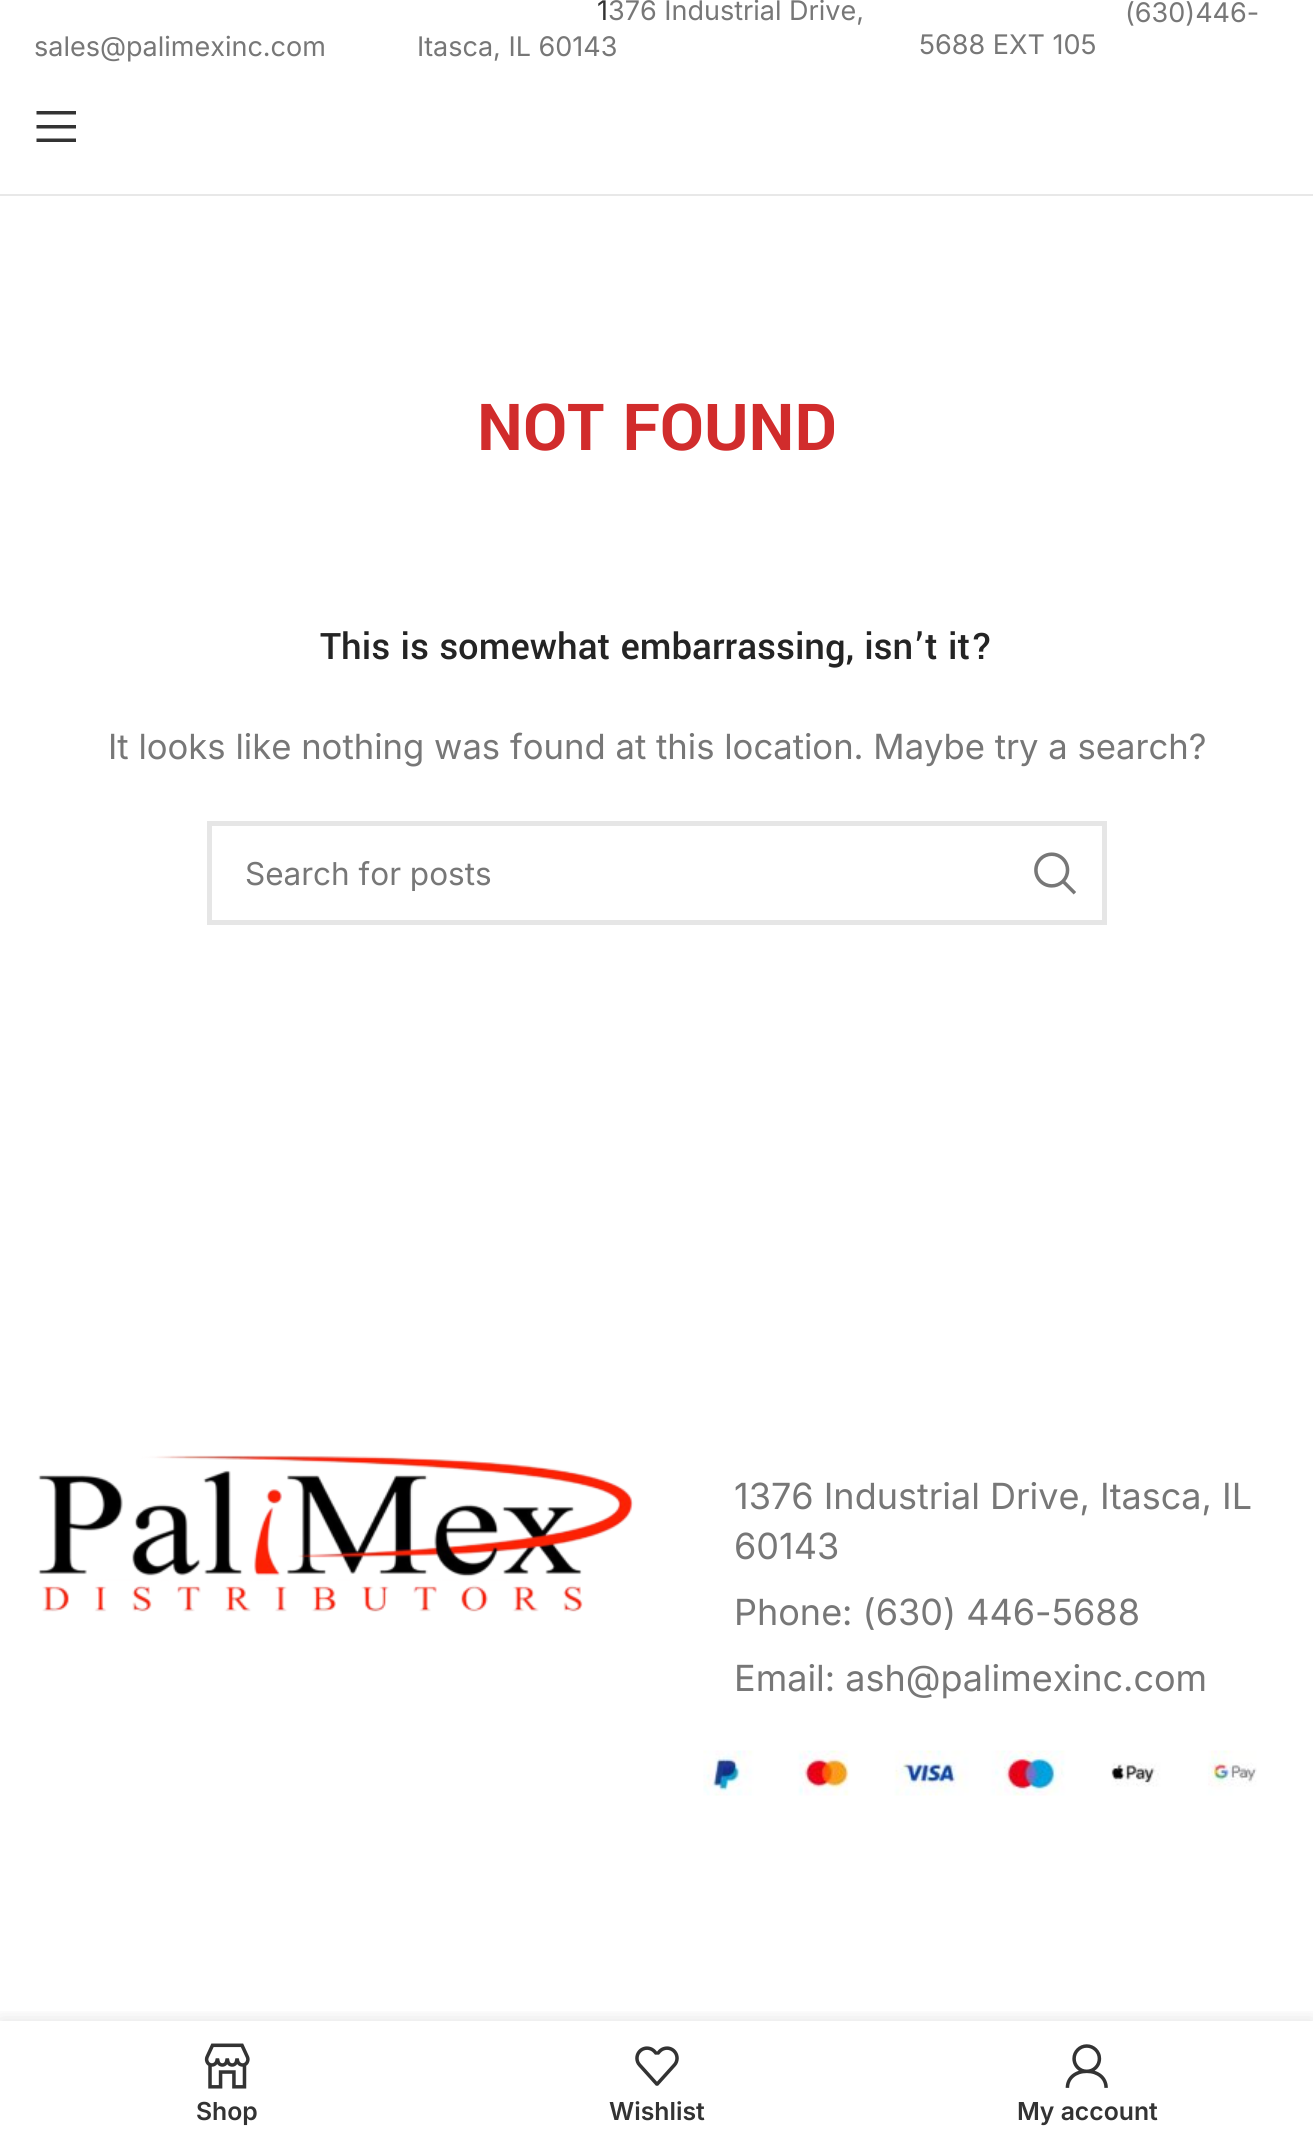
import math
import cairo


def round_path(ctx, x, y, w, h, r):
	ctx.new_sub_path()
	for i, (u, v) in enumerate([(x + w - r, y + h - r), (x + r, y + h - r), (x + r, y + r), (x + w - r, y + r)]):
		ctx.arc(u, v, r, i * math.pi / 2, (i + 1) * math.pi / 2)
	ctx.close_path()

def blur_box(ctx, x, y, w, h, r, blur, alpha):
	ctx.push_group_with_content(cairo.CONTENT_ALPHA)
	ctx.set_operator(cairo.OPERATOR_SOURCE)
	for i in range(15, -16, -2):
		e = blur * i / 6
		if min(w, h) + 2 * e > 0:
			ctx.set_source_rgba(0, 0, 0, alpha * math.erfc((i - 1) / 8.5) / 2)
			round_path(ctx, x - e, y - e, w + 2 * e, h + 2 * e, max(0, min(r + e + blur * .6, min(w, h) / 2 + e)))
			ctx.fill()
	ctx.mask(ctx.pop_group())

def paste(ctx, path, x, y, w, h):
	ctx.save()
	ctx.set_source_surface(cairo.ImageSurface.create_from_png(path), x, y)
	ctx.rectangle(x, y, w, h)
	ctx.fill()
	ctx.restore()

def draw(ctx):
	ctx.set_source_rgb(1, 1, 1)
	ctx.paint()
	ctx.select_font_face('Inter')
	ctx.set_font_size(27)
	ctx.set_source_rgb(0.467, 0.467, 0.467)
	ctx.move_to(34, 56)
	ctx.show_text('sales@palimexinc.com')
	ctx.set_source_rgb(0.2, 0.2, 0.2)
	ctx.move_to(597, 20)
	ctx.show_text('1')
	ctx.set_source_rgb(0.467, 0.467, 0.467)
	for x, y, s in [
		(608, 20, '376 Industrial Drive,'),
		(417, 56, 'Itasca, IL 60143'),
		(1125, 22, '(630)446-'),
		(919, 54, '5688 EXT 105'),
	]:
		ctx.move_to(x, y)
		ctx.show_text(s)
	ctx.set_source_rgb(0.91, 0.91, 0.91)
	ctx.rectangle(0, 194, 1313, 2)
	ctx.fill()
	ctx.set_source_rgb(0.2, 0.2, 0.2)
	ctx.new_path()
	ctx.move_to(36.5, 114.5)
	ctx.line_to(76, 114.5)
	ctx.line_to(76, 111)
	ctx.line_to(36.5, 111)
	ctx.close_path()
	ctx.move_to(36.5, 128.5)
	ctx.line_to(76, 128.5)
	ctx.line_to(76, 125)
	ctx.line_to(36.5, 125)
	ctx.close_path()
	ctx.move_to(36.5, 142)
	ctx.line_to(76, 142)
	ctx.line_to(76, 138.5)
	ctx.line_to(36.5, 138.5)
	ctx.close_path()
	ctx.fill()
	ctx.select_font_face('Yantramanav', cairo.FONT_SLANT_NORMAL, cairo.FONT_WEIGHT_BOLD)
	ctx.set_font_size(72)
	ctx.set_source_rgb(0.82, 0.173, 0.173)
	ctx.move_to(477, 450)
	ctx.show_text('NOT FOUND')
	ctx.select_font_face('Yantramanav Medium')
	ctx.set_font_size(40.5)
	ctx.set_source_rgb(0.141, 0.141, 0.141)
	ctx.move_to(320, 659)
	ctx.show_text('This is somewhat embarrassing, isn’t it?')
	ctx.select_font_face('Inter')
	ctx.set_font_size(34.65)
	ctx.set_source_rgb(0.467, 0.467, 0.467)
	ctx.move_to(108, 759)
	ctx.show_text('It looks like nothing was found at this location. Maybe try a search?')
	ctx.rectangle(209.5, 823.5, 895, 99)
	ctx.set_source_rgb(0.902, 0.902, 0.902)
	ctx.set_line_width(5)
	ctx.stroke()
	ctx.save()
	ctx.rectangle(245, 853, 687, 38)
	ctx.clip()
	ctx.set_font_size(31.5)
	ctx.set_source_rgb(0.467, 0.467, 0.467)
	ctx.move_to(245, 885)
	ctx.show_text('Search for posts')
	ctx.restore()
	paste(ctx, 'media/1.png', 1034, 852, 42, 43)
	paste(ctx, 'media/2.png', 38, 1455, 596, 157)
	ctx.set_font_size(36)
	ctx.set_source_rgb(0.467, 0.467, 0.467)
	for x, y, s in [
		(734, 1509, '1376 Industrial Drive, Itasca, IL'),
		(734, 1559, '60143'),
		(734, 1625, 'Phone: (630) 446-5688'),
		(734, 1691, 'Email: ash@palimexinc.com'),
	]:
		ctx.move_to(x, y)
		ctx.show_text(s)
	paste(ctx, 'media/3.png', 703, 1750, 554, 46)
	ctx.save()
	ctx.rectangle(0, 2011, 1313, 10)
	ctx.clip()
	ctx.set_source_rgb(0, 0, 0)
	blur_box(ctx, 0, 2021, 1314, 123, 0, 10, 0.12)
	ctx.restore()
	paste(ctx, 'media/4.png', 204, 2043, 46, 46)
	ctx.select_font_face('Inter SemiBold')
	ctx.set_font_size(24.75)
	ctx.set_source_rgb(0.2, 0.2, 0.2)
	ctx.move_to(196, 2120)
	ctx.show_text('Shop')
	paste(ctx, 'media/5.png', 635, 2046, 44, 40)
	ctx.move_to(609, 2120)
	ctx.show_text('Wishlist')
	paste(ctx, 'media/6.png', 1065, 2044, 43, 44)
	ctx.move_to(1017, 2120)
	ctx.show_text('My account')


surface = cairo.ImageSurface(cairo.FORMAT_RGB24, 1313, 2143)
ctx = cairo.Context(surface)
options = cairo.FontOptions()
options.set_hint_metrics(cairo.HINT_METRICS_OFF)
options.set_hint_style(cairo.HINT_STYLE_NONE)
ctx.set_font_options(options)
ctx.set_miter_limit(4)
draw(ctx)
surface.write_to_png('image.png')
